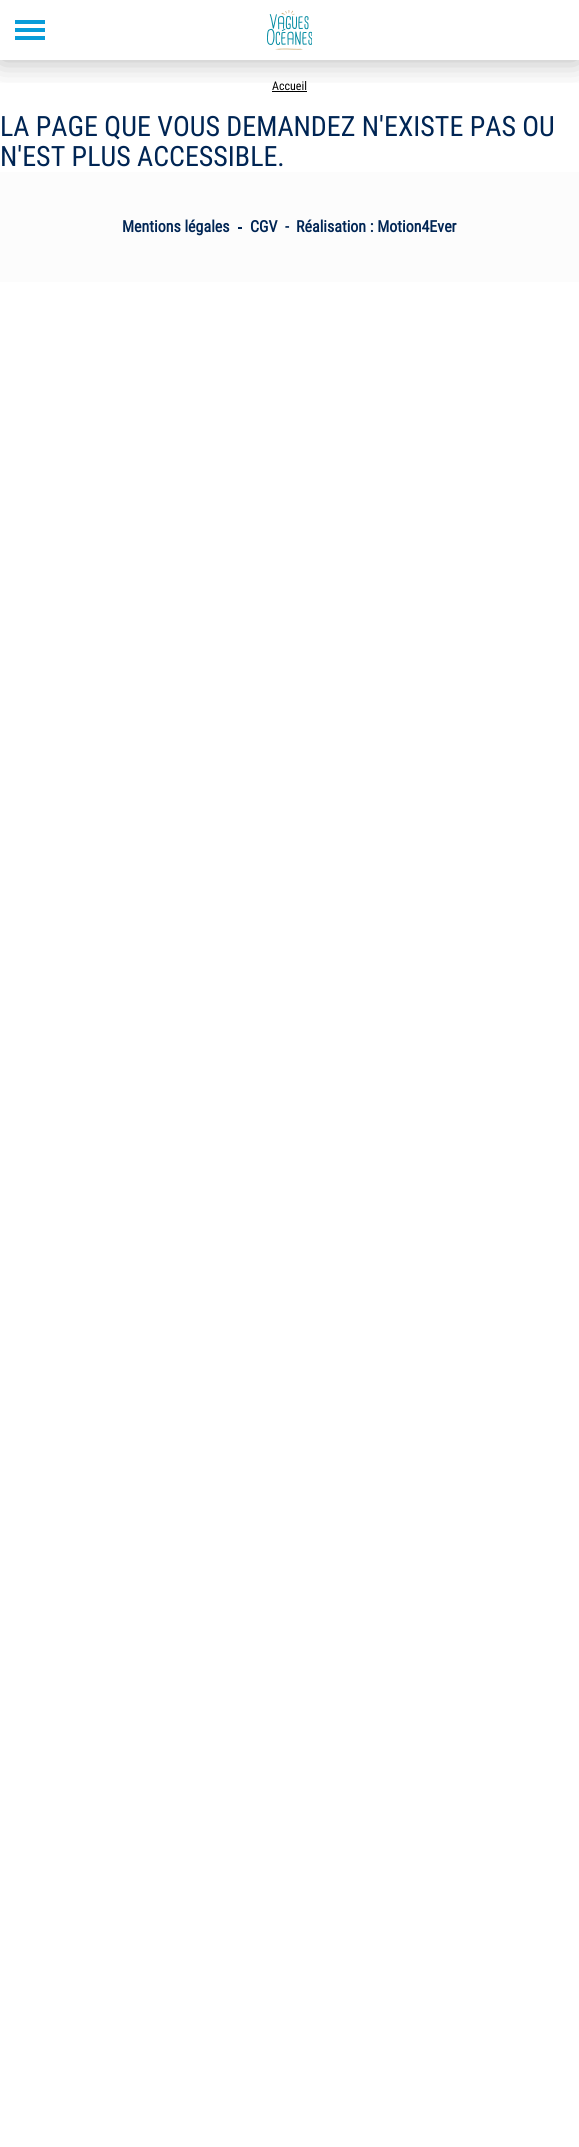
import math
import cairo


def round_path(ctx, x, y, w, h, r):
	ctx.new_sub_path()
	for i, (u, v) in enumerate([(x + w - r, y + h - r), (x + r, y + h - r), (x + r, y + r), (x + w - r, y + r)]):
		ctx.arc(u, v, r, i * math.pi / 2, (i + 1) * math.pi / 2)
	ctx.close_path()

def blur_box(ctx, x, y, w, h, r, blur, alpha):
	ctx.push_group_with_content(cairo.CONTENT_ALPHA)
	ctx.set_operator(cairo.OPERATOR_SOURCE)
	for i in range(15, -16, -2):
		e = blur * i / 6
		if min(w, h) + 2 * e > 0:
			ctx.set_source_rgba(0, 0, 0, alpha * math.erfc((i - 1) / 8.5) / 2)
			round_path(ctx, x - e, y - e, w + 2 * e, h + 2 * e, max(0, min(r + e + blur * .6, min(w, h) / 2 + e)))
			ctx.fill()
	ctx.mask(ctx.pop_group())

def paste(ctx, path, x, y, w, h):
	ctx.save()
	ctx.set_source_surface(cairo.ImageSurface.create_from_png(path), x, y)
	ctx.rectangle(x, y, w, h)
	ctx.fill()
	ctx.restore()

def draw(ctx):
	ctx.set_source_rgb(1, 1, 1)
	ctx.paint()
	ctx.set_source_rgb(0, 0, 0)
	ctx.rectangle(272, 91, 35, 1)
	ctx.fill()
	ctx.save()
	ctx.rectangle(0, 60, 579, 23)
	ctx.clip()
	ctx.set_source_rgb(0, 0, 0)
	blur_box(ctx, 0, 0, 579, 60, 0, 15, 0.3)
	ctx.restore()
	ctx.set_source_rgb(0.031, 0.612, 0.851)
	ctx.rectangle(15, 20, 30, 4)
	ctx.rectangle(15, 28, 30, 4)
	ctx.rectangle(15, 36, 30, 4)
	ctx.fill()
	paste(ctx, 'media/1.png', 267, 10, 45, 40)
	ctx.select_font_face('Roboto Condensed')
	ctx.set_font_size(12)
	ctx.set_source_rgb(0, 0, 0)
	ctx.move_to(272, 90)
	ctx.show_text('Accueil')
	ctx.set_font_size(28)
	ctx.set_source_rgb(0, 0.145, 0.329)
	ctx.move_to(0, 136)
	ctx.show_text('LA PAGE QUE VOUS DEMANDEZ N\'EXISTE PAS OU')
	ctx.move_to(0, 166)
	ctx.show_text('N\'EST PLUS ACCESSIBLE.')
	ctx.set_source_rgb(0.988, 0.988, 0.988)
	ctx.rectangle(0, 172, 579, 110)
	ctx.fill()
	ctx.select_font_face('Roboto Condensed', cairo.FONT_SLANT_NORMAL, cairo.FONT_WEIGHT_BOLD)
	ctx.set_font_size(16)
	ctx.set_source_rgb(0, 0.145, 0.329)
	ctx.move_to(122, 232)
	ctx.show_text('Mentions légales')
	ctx.rectangle(238, 227, 4, 2)
	ctx.fill()
	for x, y, s in [
		(250, 232, 'CGV'),
		(285, 232, '-'),
		(296, 232, 'Réalisation : Motion4Ever'),
	]:
		ctx.move_to(x, y)
		ctx.show_text(s)


surface = cairo.ImageSurface(cairo.FORMAT_RGB24, 579, 2147)
ctx = cairo.Context(surface)
options = cairo.FontOptions()
options.set_hint_metrics(cairo.HINT_METRICS_OFF)
options.set_hint_style(cairo.HINT_STYLE_NONE)
ctx.set_font_options(options)
ctx.set_miter_limit(4)
draw(ctx)
surface.write_to_png('image.png')
